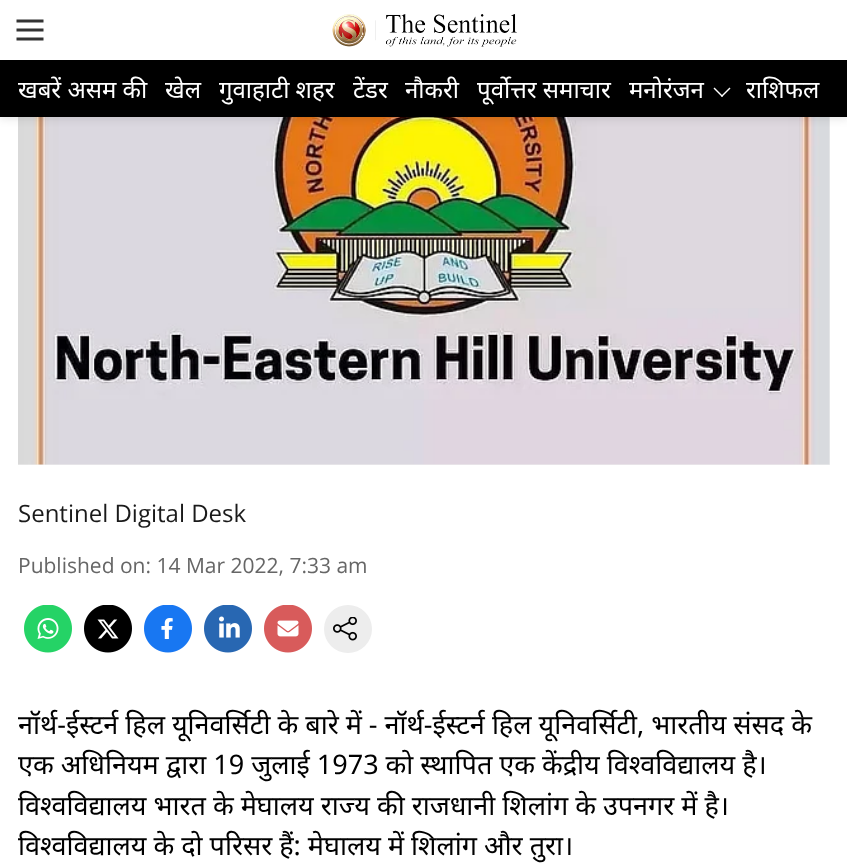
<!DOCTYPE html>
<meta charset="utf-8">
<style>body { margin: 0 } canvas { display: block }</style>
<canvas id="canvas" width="847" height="864"></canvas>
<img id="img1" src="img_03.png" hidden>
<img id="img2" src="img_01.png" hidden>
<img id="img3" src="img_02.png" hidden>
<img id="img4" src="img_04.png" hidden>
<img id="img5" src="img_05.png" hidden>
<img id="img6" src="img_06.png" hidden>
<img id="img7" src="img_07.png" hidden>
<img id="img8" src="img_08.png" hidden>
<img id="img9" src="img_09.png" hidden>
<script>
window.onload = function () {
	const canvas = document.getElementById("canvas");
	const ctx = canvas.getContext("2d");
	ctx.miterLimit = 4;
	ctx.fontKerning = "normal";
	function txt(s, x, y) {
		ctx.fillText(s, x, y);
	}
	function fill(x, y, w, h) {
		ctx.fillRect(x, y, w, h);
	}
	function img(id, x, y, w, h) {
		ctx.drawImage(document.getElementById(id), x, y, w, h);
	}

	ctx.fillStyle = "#FFFFFF";
	fill(0, 0, 847, 864);
	ctx.fillStyle = "#F0F0F0";
	fill(18, 117, 812, 348);
	img("img1", 18, 117, 812, 348);
	ctx.fillStyle = "rgba(0, 0, 0, 0.1)";
	ctx.filter = "blur(4.5px)";
	ctx.beginPath();
	ctx.rect(0, 2, 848, 117);
	ctx.fill();
	ctx.filter = "none";
	ctx.fillStyle = "#FFFFFF";
	fill(0, 0, 847, 60);
	img("img2", 16, 19, 28, 22);
	img("img3", 332, 14, 185, 33);
	ctx.fillStyle = "#000000";
	fill(0, 60, 847, 57);
	ctx.fillStyle = "#FFFFFF";
	ctx.beginPath();
	ctx.moveTo(729.5, 87.5);
	ctx.lineTo(730.5, 88.5);
	ctx.lineTo(722, 97);
	ctx.lineTo(721, 96);
	ctx.closePath();
	ctx.fill();
	ctx.beginPath();
	ctx.moveTo(714.5, 87.5);
	ctx.lineTo(723, 96);
	ctx.lineTo(722, 97);
	ctx.lineTo(713.5, 88.5);
	ctx.closePath();
	ctx.fill();
	img("img4", 24, 605, 48, 48);
	img("img5", 84, 605, 48, 48);
	img("img6", 144, 605, 48, 48);
	img("img7", 204, 605, 48, 48);
	img("img8", 264, 605, 48, 48);
	ctx.fillStyle = "#EDEDED";
	ctx.beginPath();
	ctx.arc(348, 629, 24, 0, Math.PI * 2);
	ctx.fill();
	img("img9", 333, 617, 24, 24);
	ctx.font = "24px Noto Sans";
	ctx.fillStyle = "#FFFFFF";
	txt("खबरें असम की", 18, 98);
	txt("खेल", 165, 98);
	txt("गुवाहाटी शहर", 219, 98);
	txt("टेंडर", 353, 98);
	txt("नौकरी", 405, 98);
	txt("पूर्वोत्तर समाचार", 477, 98);
	txt("मनोरंजन", 629, 98);
	txt("राशिफल", 746, 98);
	ctx.font = "24px Open Sans";
	ctx.fillStyle = "#1A1A1A";
	txt("Sentinel Digital Desk", 18, 522);
	ctx.font = "21px Open Sans";
	ctx.fillStyle = "#666666";
	txt("Published on: 14 Mar 2022, 7:33 am", 18, 573);
	ctx.font = "27px Noto Sans";
	ctx.fillStyle = "#000000";
	txt("नॉर्थ-ईस्टर्न हिल यूनिवर्सिटी के बारे में - नॉर्थ-ईस्टर्न हिल यूनिवर्सिटी, भारतीय संसद के", 18, 734);
	txt("एक अधिनियम द्वारा 19 जुलाई 1973 को स्थापित एक केंद्रीय विश्वविद्यालय है।", 18, 774);
	txt("विश्वविद्यालय भारत के मेघालय राज्य की राजधानी शिलांग के उपनगर में है।", 18, 815);
	txt("विश्वविद्यालय के दो परिसर हैं: मेघालय में शिलांग और तुरा।", 18, 855);
};
</script>
